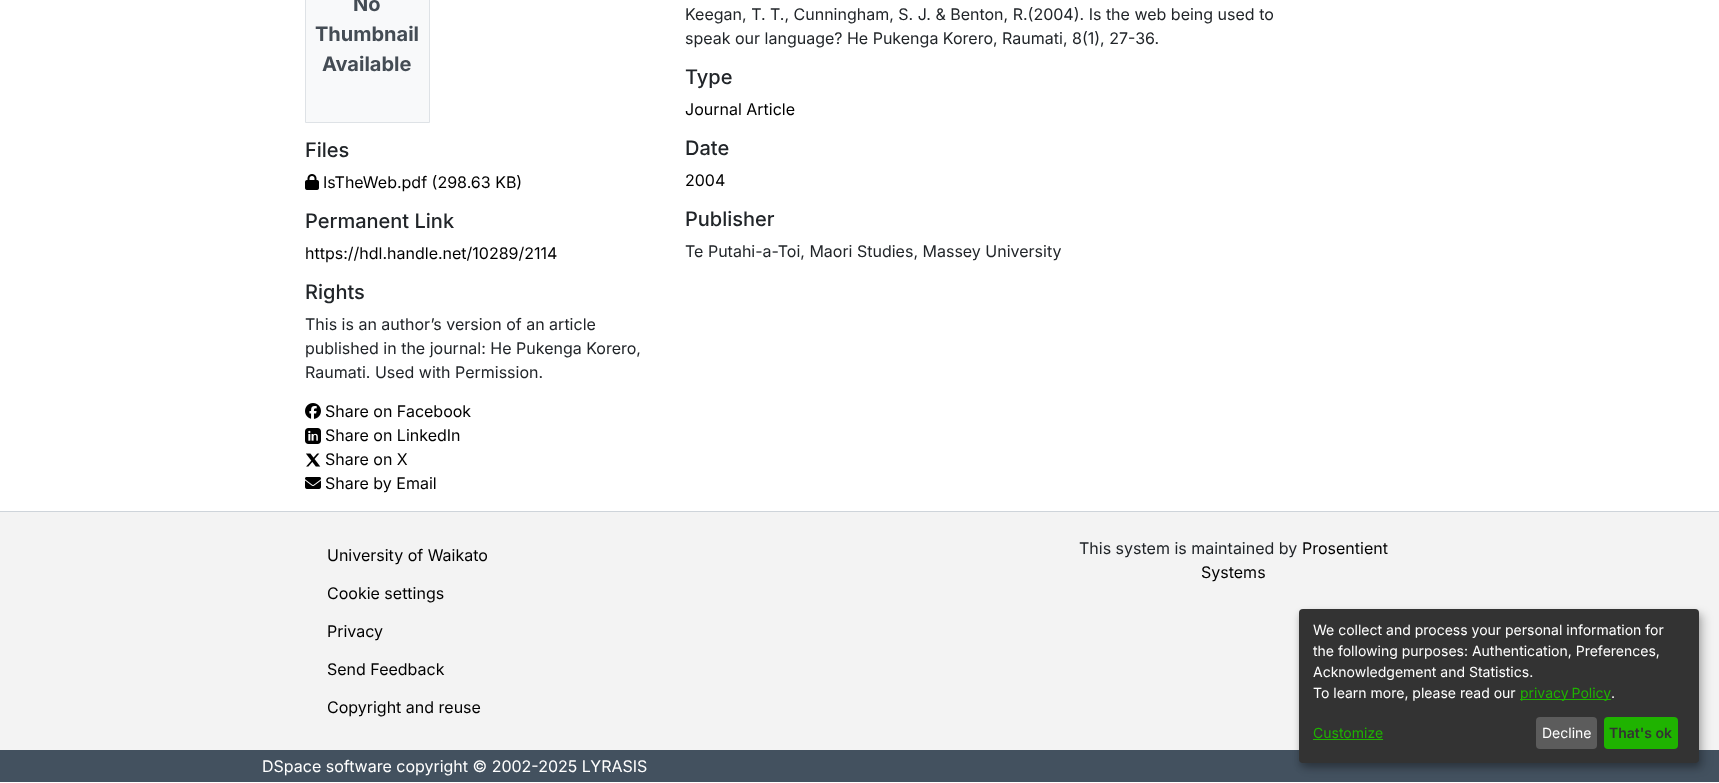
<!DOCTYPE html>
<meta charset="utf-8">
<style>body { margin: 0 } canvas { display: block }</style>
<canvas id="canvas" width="1719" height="783"></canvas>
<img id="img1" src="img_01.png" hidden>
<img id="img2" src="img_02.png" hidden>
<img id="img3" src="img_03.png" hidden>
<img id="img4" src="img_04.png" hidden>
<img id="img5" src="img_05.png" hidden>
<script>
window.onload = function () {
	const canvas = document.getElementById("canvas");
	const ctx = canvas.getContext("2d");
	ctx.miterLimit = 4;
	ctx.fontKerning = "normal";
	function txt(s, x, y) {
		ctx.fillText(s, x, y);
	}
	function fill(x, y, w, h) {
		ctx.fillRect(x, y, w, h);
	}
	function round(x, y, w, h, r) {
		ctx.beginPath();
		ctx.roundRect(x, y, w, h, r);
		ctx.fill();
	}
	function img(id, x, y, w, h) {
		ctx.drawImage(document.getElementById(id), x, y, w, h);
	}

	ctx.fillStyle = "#FFFFFF";
	fill(0, 0, 1719, 783);
	ctx.fillStyle = "#F8F9FA";
	ctx.beginPath();
	ctx.rect(305.5, -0.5, 124, 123);
	ctx.fill();
	ctx.strokeStyle = "#DEE2E6";
	ctx.stroke();
	img("img1", 305, 174, 14, 16);
	img("img2", 305, 403, 16, 16);
	img("img3", 305, 428, 16, 16);
	img("img4", 306, 453, 15, 14);
	img("img5", 305, 477, 16, 12);
	ctx.fillStyle = "#43515F";
	fill(0, 750, 1719, 32);
	ctx.fillStyle = "#CED4DA";
	fill(0, 511, 1719, 1);
	ctx.fillStyle = "#F3F3F3";
	fill(0, 512, 1719, 238);
	ctx.fillStyle = "rgba(0, 0, 0, 0.19)";
	ctx.filter = "blur(5px)";
	ctx.beginPath();
	ctx.roundRect(1304, 614, 400, 154, 4);
	ctx.fill();
	ctx.filter = "none";
	ctx.fillStyle = "rgba(0, 0, 0, 0.2)";
	ctx.filter = "blur(3px)";
	ctx.beginPath();
	ctx.roundRect(1299, 613, 400, 154, 4);
	ctx.fill();
	ctx.filter = "none";
	ctx.fillStyle = "#333333";
	round(1299, 609, 400, 154, 4);
	ctx.fillStyle = "#1FB300";
	fill(1520, 699, 91, 1);
	fill(1313, 739, 70, 1);
	ctx.fillStyle = "#5C5C5C";
	round(1536, 717, 61, 32, 4);
	ctx.fillStyle = "#1FB300";
	round(1604, 717, 74, 32, 4);
	ctx.font = "bold 20px Inter";
	ctx.fillStyle = "#444C54";
	txt("No", 353, 11);
	txt("Thumbnail", 315, 41);
	txt("Available", 322, 71);
	ctx.font = "500 20px Inter";
	ctx.fillStyle = "#212529";
	txt("Files", 305, 157);
	ctx.font = "16px Inter";
	ctx.fillStyle = "#000000";
	txt("IsTheWeb.pdf (298.63 KB)", 323, 188);
	ctx.font = "500 20px Inter";
	ctx.fillStyle = "#212529";
	txt("Permanent Link", 305, 228);
	ctx.font = "16px Inter";
	ctx.fillStyle = "#000000";
	txt("https://hdl.handle.net/10289/2114", 305, 259);
	ctx.font = "500 20px Inter";
	ctx.fillStyle = "#212529";
	txt("Rights", 305, 299);
	ctx.font = "16px Inter";
	txt("This is an author’s version of an article", 305, 330);
	txt("published in the journal: He Pukenga Korero,", 305, 354);
	txt("Raumati. Used with Permission.", 305, 378);
	ctx.fillStyle = "#000000";
	txt("Share on Facebook", 325, 417);
	txt("Share on LinkedIn", 325, 441);
	txt("Share on X", 325, 465);
	txt("Share by Email", 325, 489);
	ctx.fillStyle = "#212529";
	txt("Keegan, T. T., Cunningham, S. J. & Benton, R.(2004). Is the web being used to", 685, 20);
	txt("speak our language? He Pukenga Korero, Raumati, 8(1), 27-36.", 685, 44);
	ctx.font = "500 20px Inter";
	txt("Type", 685, 84);
	ctx.font = "16px Inter";
	ctx.fillStyle = "#000000";
	txt("Journal Article", 685, 115);
	ctx.font = "500 20px Inter";
	ctx.fillStyle = "#212529";
	txt("Date", 685, 155);
	ctx.font = "16px Inter";
	ctx.fillStyle = "#000000";
	txt("2004", 685, 186);
	ctx.font = "500 20px Inter";
	ctx.fillStyle = "#212529";
	txt("Publisher", 685, 226);
	ctx.font = "16px Inter";
	txt("Te Putahi-a-Toi, Maori Studies, Massey University", 685, 257);
	ctx.fillStyle = "#000000";
	txt("University of Waikato", 327, 561);
	txt("Cookie settings", 327, 599);
	txt("Privacy", 327, 637);
	txt("Send Feedback", 327, 675);
	txt("Copyright and reuse", 327, 713);
	ctx.fillStyle = "#212529";
	txt("This system is maintained by", 1079, 554);
	ctx.fillStyle = "#000000";
	txt("Prosentient", 1302, 554);
	txt("Systems", 1201, 578);
	ctx.fillStyle = "#FFFFFF";
	txt("DSpace software copyright © 2002-2025 LYRASIS", 262, 772);
	ctx.font = "14px Inter";
	txt("We collect and process your personal information for", 1313, 635);
	txt("the following purposes: Authentication, Preferences,", 1313, 656);
	txt("Acknowledgement and Statistics.", 1313, 677);
	txt("To learn more, please read our", 1313, 698);
	ctx.wordSpacing = "-1px";
	ctx.fillStyle = "#1FB300";
	txt("privacy Policy", 1520, 698);
	ctx.wordSpacing = "0px";
	ctx.fillStyle = "#FFFFFF";
	txt(".", 1611, 698);
	ctx.fillStyle = "#1FB300";
	txt("Customize", 1313, 738);
	ctx.fillStyle = "#FFFFFF";
	txt("Decline", 1542, 738);
	ctx.font = "600 14px Inter";
	ctx.fillStyle = "#333333";
	txt("That's ok", 1609, 738);
};
</script>
